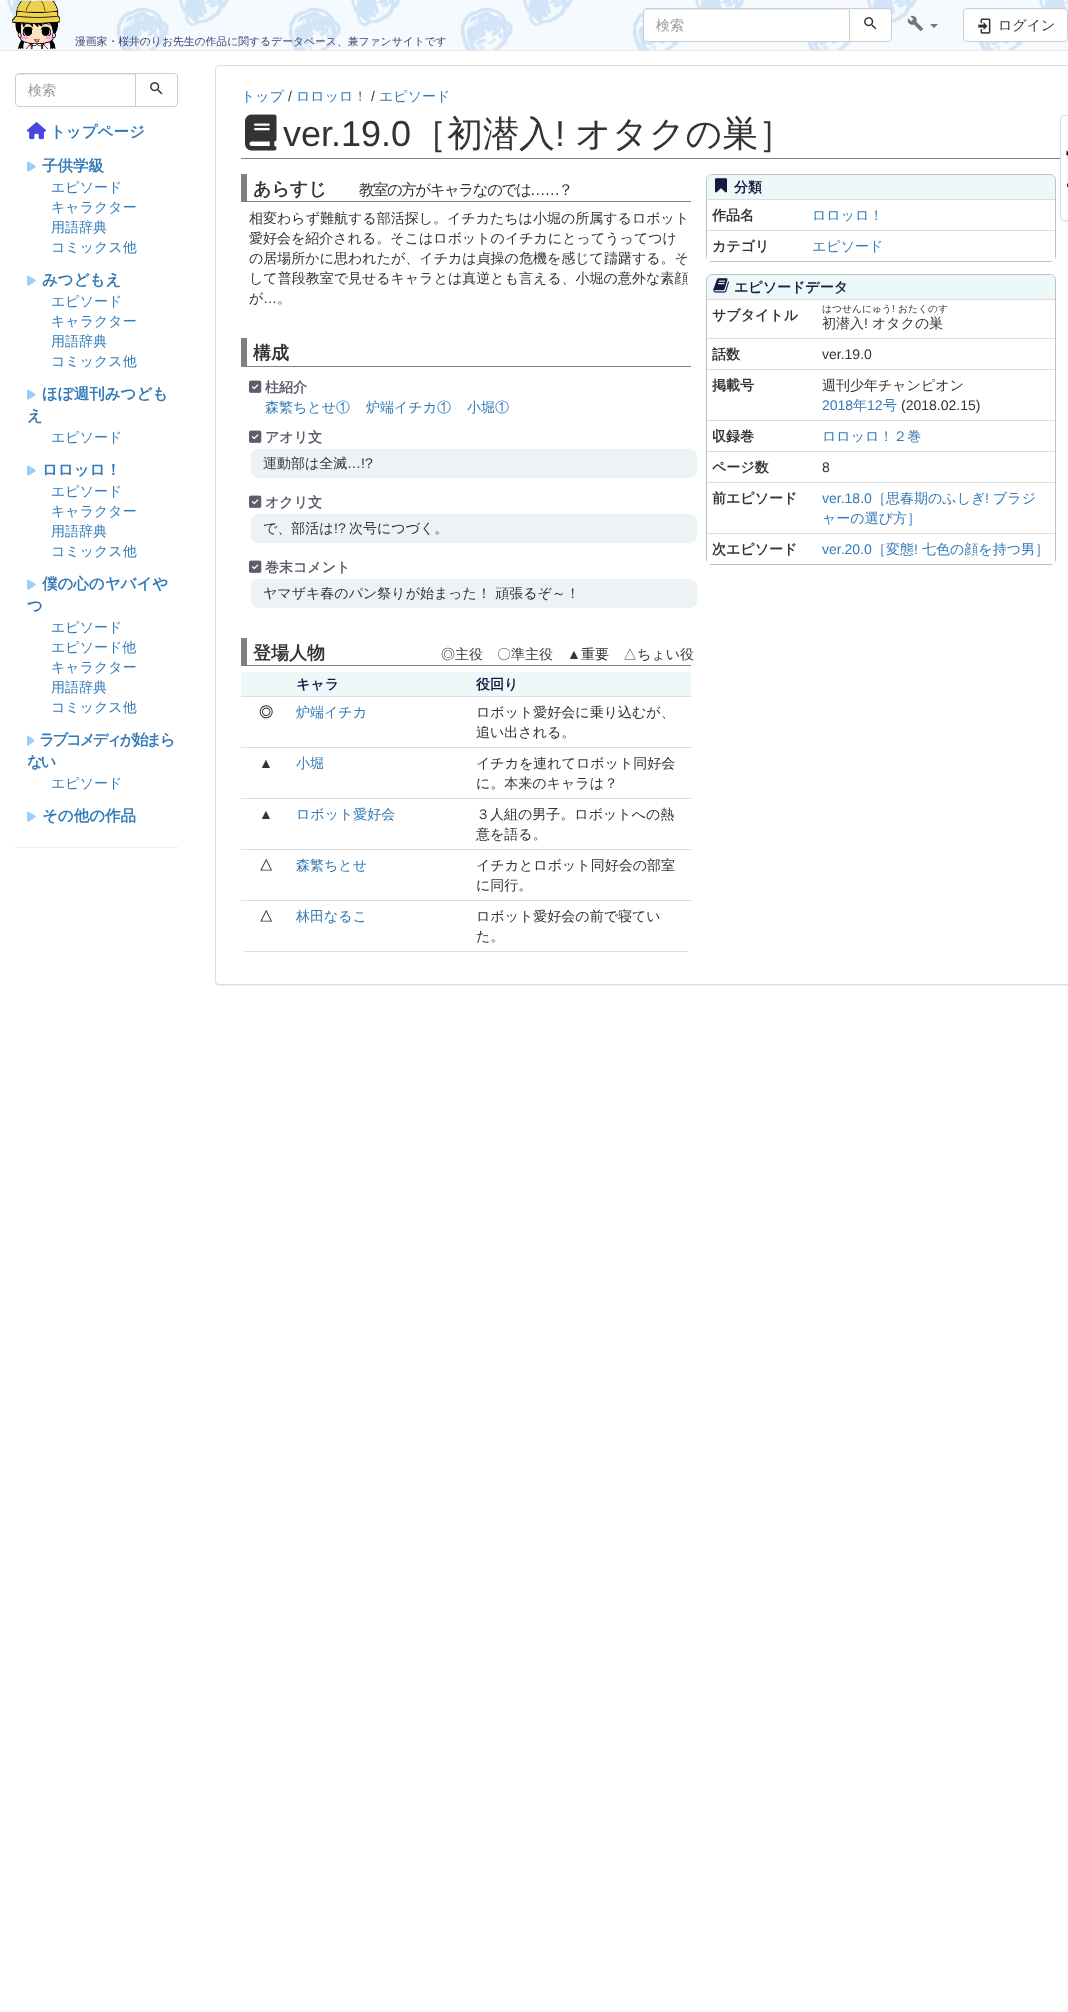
<!DOCTYPE html>
<meta charset="utf-8">
<style>body { margin: 0 } canvas { display: block }</style>
<canvas id="canvas" width="1068" height="2012"></canvas>
<img id="img1" src="img_01.png" hidden>
<img id="img2" src="img_02.png" hidden>
<img id="img3" src="img_03.png" hidden>
<img id="img4" src="img_04.png" hidden>
<img id="img5" src="img_05.png" hidden>
<img id="img6" src="img_06.png" hidden>
<img id="img7" src="img_07.png" hidden>
<img id="img8" src="img_08.png" hidden>
<img id="img9" src="img_09.png" hidden>
<img id="img10" src="img_10.png" hidden>
<img id="img11" src="img_11.png" hidden>
<img id="img12" src="img_12.png" hidden>
<img id="img13" src="img_13.png" hidden>
<img id="img14" src="img_14.png" hidden>
<script>
window.onload = function () {
	const canvas = document.getElementById("canvas");
	const ctx = canvas.getContext("2d");
	ctx.miterLimit = 4;
	ctx.fontKerning = "normal";
	function txt(s, x, y) {
		ctx.fillText(s, x, y);
	}
	function fill(x, y, w, h) {
		ctx.fillRect(x, y, w, h);
	}
	function img(id, x, y, w, h) {
		ctx.drawImage(document.getElementById(id), x, y, w, h);
	}

	ctx.fillStyle = "#FFFFFF";
	fill(0, 0, 1068, 2012);
	ctx.fillStyle = "#E7E7E7";
	fill(0, 50, 1068, 1);
	img("img1", 0, 0, 1068, 50);
	ctx.fillStyle = "#FFFFFF";
	ctx.beginPath();
	ctx.roundRect(643, 8, 207, 34, [4, 0, 0, 4]);
	ctx.fill();
	ctx.fillStyle = "#ECECEC";
	ctx.beginPath();
	ctx.moveTo(647, 10);
	ctx.lineTo(849, 10);
	ctx.lineTo(849, 9);
	ctx.lineTo(646, 9);
	ctx.bezierCurveTo(644, 10, 644, 11, 644, 13);
	ctx.bezierCurveTo(644, 11, 645, 10, 647, 10);
	ctx.closePath();
	ctx.fill();
	ctx.beginPath();
	ctx.roundRect(643.5, 8.5, 206, 33, [3.5, 0, 0, 3.5]);
	ctx.strokeStyle = "#CCCCCC";
	ctx.stroke();
	ctx.fillStyle = "#FFFFFF";
	ctx.beginPath();
	ctx.roundRect(849.5, 8.5, 42, 33, [0, 3.5, 3.5, 0]);
	ctx.fill();
	ctx.stroke();
	img("img2", 864, 17, 13, 13);
	img("img3", 907, 15, 16, 16);
	ctx.fillStyle = "#777777";
	ctx.beginPath();
	ctx.moveTo(930, 24);
	ctx.lineTo(938, 24);
	ctx.lineTo(934, 28);
	ctx.closePath();
	ctx.fill();
	ctx.fillStyle = "#FFFFFF";
	ctx.beginPath();
	ctx.roundRect(963.5, 8.5, 104, 33, 3.5);
	ctx.fill();
	ctx.stroke();
	img("img4", 978, 18, 13, 16);
	img("img5", 12, 1, 48, 48);
	ctx.fillStyle = "#ECECEC";
	ctx.beginPath();
	ctx.moveTo(19, 75);
	ctx.lineTo(135, 75);
	ctx.lineTo(135, 74);
	ctx.lineTo(19, 74);
	ctx.bezierCurveTo(17, 74, 16, 75, 16, 77);
	ctx.lineTo(16, 78);
	ctx.bezierCurveTo(16, 76, 17, 75, 19, 75);
	ctx.closePath();
	ctx.fill();
	ctx.beginPath();
	ctx.roundRect(15.5, 73.5, 120, 33, [3.5, 0, 0, 3.5]);
	ctx.stroke();
	ctx.fillStyle = "#FFFFFF";
	ctx.beginPath();
	ctx.roundRect(135.5, 73.5, 42, 33, [0, 3.5, 3.5, 0]);
	ctx.fill();
	ctx.stroke();
	img("img2", 150, 82, 13, 13);
	img("img6", 27, 122, 19, 18);
	img("img7", 27, 161, 9, 11);
	img("img7", 27, 275, 9, 11);
	img("img7", 27, 389, 9, 11);
	img("img7", 27, 465, 9, 11);
	img("img7", 27, 579, 9, 11);
	img("img8", 27, 735, 8, 11);
	img("img7", 27, 811, 9, 11);
	ctx.fillStyle = "#EEEEEE";
	fill(15, 847, 163, 1);
	ctx.fillStyle = "rgba(0, 0, 0, 0.05)";
	ctx.filter = "blur(0.5px)";
	ctx.beginPath();
	ctx.roundRect(215, 66, 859, 920, 4);
	ctx.fill();
	ctx.filter = "none";
	ctx.fillStyle = "#FFFFFF";
	ctx.beginPath();
	ctx.roundRect(215.5, 65.5, 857, 919, 3.5);
	ctx.fill();
	ctx.strokeStyle = "#DDDDDD";
	ctx.stroke();
	ctx.fillStyle = "#808080";
	fill(241, 158, 819, 1);
	img("img9", 245, 114, 32, 37);
	fill(241, 201, 450, 1);
	fill(241, 174, 6, 28);
	fill(241, 366, 450, 1);
	fill(241, 338, 6, 29);
	img("img10", 249, 380, 13, 13);
	img("img10", 249, 430, 13, 13);
	ctx.fillStyle = "#EDF2F4";
	fill(256, 449, 436, 2);
	fill(692, 450, 2, 1);
	fill(254, 450, 2, 1);
	fill(253, 451, 442, 3);
	fill(695, 452, 1, 2);
	fill(252, 452, 1, 2);
	fill(251, 454, 446, 19);
	fill(252, 473, 444, 2);
	fill(253, 475, 442, 1);
	fill(254, 476, 440, 1);
	fill(256, 477, 436, 1);
	img("img10", 249, 495, 13, 13);
	fill(256, 514, 436, 2);
	fill(692, 515, 2, 1);
	fill(254, 515, 2, 1);
	fill(253, 516, 442, 3);
	fill(695, 517, 1, 2);
	fill(252, 517, 1, 2);
	fill(251, 519, 446, 19);
	fill(252, 538, 444, 2);
	fill(253, 540, 442, 1);
	fill(254, 541, 440, 1);
	fill(256, 542, 436, 1);
	img("img10", 249, 560, 13, 13);
	fill(256, 579, 436, 2);
	fill(692, 580, 2, 1);
	fill(254, 580, 2, 1);
	fill(253, 581, 442, 3);
	fill(695, 582, 1, 2);
	fill(252, 582, 1, 2);
	fill(251, 584, 446, 19);
	fill(252, 603, 444, 2);
	fill(253, 605, 442, 1);
	fill(254, 606, 440, 1);
	fill(256, 607, 436, 1);
	ctx.fillStyle = "#808080";
	fill(241, 665, 450, 1);
	fill(241, 638, 6, 28);
	ctx.fillStyle = "#EDF8F9";
	fill(241, 672, 450, 24);
	ctx.fillStyle = "#DDDDDD";
	fill(241, 696, 450, 1);
	fill(241, 747, 450, 1);
	fill(241, 798, 450, 1);
	fill(241, 849, 450, 1);
	fill(241, 900, 450, 1);
	fill(244, 951, 444, 1);
	ctx.beginPath();
	ctx.roundRect(706.5, 174.5, 349, 87, 5.5);
	ctx.strokeStyle = "#C0C0C0";
	ctx.stroke();
	ctx.fillStyle = "#EDF8F9";
	ctx.beginPath();
	ctx.roundRect(707, 175, 348, 24, [6, 6, 0, 0]);
	ctx.fill();
	img("img11", 715, 178, 12, 15);
	ctx.fillStyle = "#DDDDDD";
	fill(707, 199, 348, 1);
	ctx.fillStyle = "#FFFFFF";
	fill(707, 256, 348, 5);
	ctx.fillStyle = "#DDDDDD";
	fill(707, 230, 348, 1);
	ctx.beginPath();
	ctx.roundRect(706.5, 274.5, 349, 290, 5.5);
	ctx.stroke();
	ctx.fillStyle = "#EDF8F9";
	ctx.beginPath();
	ctx.roundRect(707, 275, 348, 24, [6, 6, 0, 0]);
	ctx.fill();
	img("img12", 713, 278, 16, 15);
	ctx.fillStyle = "#DDDDDD";
	fill(707, 299, 348, 1);
	fill(707, 338, 348, 1);
	fill(707, 369, 348, 1);
	fill(707, 420, 348, 1);
	fill(707, 451, 348, 1);
	fill(707, 482, 348, 1);
	ctx.fillStyle = "#FFFFFF";
	fill(707, 559, 348, 5);
	ctx.fillStyle = "#DDDDDD";
	fill(707, 533, 348, 1);
	ctx.fillStyle = "rgba(0, 0, 0, 0.05)";
	ctx.filter = "blur(0.5px)";
	ctx.beginPath();
	ctx.roundRect(1060, 116, 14, 106, 4);
	ctx.fill();
	ctx.filter = "none";
	ctx.fillStyle = "#FFFFFF";
	ctx.beginPath();
	ctx.roundRect(1060.5, 115.5, 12, 105, 3.5);
	ctx.fill();
	ctx.strokeStyle = "#DDDDDD";
	ctx.stroke();
	img("img13", 1066, 150, 2, 9);
	img("img14", 1067, 183, 1, 5);
	ctx.font = "500 14px WenQuanYi Zen Hei";
	ctx.fillStyle = "#999999";
	txt("検索", 656, 30);
	ctx.fillStyle = "#333333";
	txt("ログイン", 998, 30);
	ctx.font = "500 10.8px WenQuanYi Zen Hei";
	ctx.fillStyle = "#414172";
	txt("漫画家・桜井のりお先生の作品に関するデータベース、兼ファンサイトです", 75, 45);
	ctx.font = "500 14px WenQuanYi Zen Hei";
	ctx.fillStyle = "#999999";
	txt("検索", 28, 95);
	ctx.font = "bold 15.5px WenQuanYi Zen Hei";
	ctx.fillStyle = "#337AB7";
	txt("トップページ", 50, 137);
	txt("子供学級", 42, 171);
	ctx.font = "500 14px WenQuanYi Zen Hei";
	txt("エピソード", 51, 192);
	txt("キャラクター", 51, 212);
	txt("用語辞典", 51, 232);
	txt("コミックス他", 51, 252);
	ctx.font = "bold 15.5px WenQuanYi Zen Hei";
	txt("みつどもえ", 42, 285);
	ctx.font = "500 14px WenQuanYi Zen Hei";
	txt("エピソード", 51, 306);
	txt("キャラクター", 51, 326);
	txt("用語辞典", 51, 346);
	txt("コミックス他", 51, 366);
	ctx.font = "bold 15.5px WenQuanYi Zen Hei";
	txt("ほぼ週刊みつども", 42, 399);
	txt("え", 27, 421);
	ctx.font = "500 14px WenQuanYi Zen Hei";
	txt("エピソード", 51, 442);
	ctx.font = "bold 15.5px WenQuanYi Zen Hei";
	txt("ロロッロ！", 42, 475);
	ctx.font = "500 14px WenQuanYi Zen Hei";
	txt("エピソード", 51, 496);
	txt("キャラクター", 51, 516);
	txt("用語辞典", 51, 536);
	txt("コミックス他", 51, 556);
	ctx.font = "bold 15.5px WenQuanYi Zen Hei";
	txt("僕の心のヤバイや", 42, 589);
	txt("つ", 27, 611);
	ctx.font = "500 14px WenQuanYi Zen Hei";
	txt("エピソード", 51, 632);
	txt("エピソード他", 51, 652);
	txt("キャラクター", 51, 672);
	txt("用語辞典", 51, 692);
	txt("コミックス他", 51, 712);
	ctx.letterSpacing = "-2.4px";
	ctx.font = "bold 15.5px WenQuanYi Zen Hei";
	txt("ラブコメディが始まら", 39, 745);
	txt("ない", 27, 767);
	ctx.letterSpacing = "0px";
	ctx.font = "500 14px WenQuanYi Zen Hei";
	txt("エピソード", 51, 788);
	ctx.font = "bold 15.5px WenQuanYi Zen Hei";
	txt("その他の作品", 42, 821);
	ctx.font = "500 14px WenQuanYi Zen Hei";
	txt("トップ", 241, 101);
	ctx.font = "14px Liberation Sans";
	ctx.fillStyle = "#333333";
	txt("/", 288, 101);
	ctx.font = "500 14px WenQuanYi Zen Hei";
	ctx.fillStyle = "#337AB7";
	txt("ロロッロ！", 296, 101);
	ctx.font = "14px Liberation Sans";
	ctx.fillStyle = "#333333";
	txt("/", 371, 101);
	ctx.font = "500 14px WenQuanYi Zen Hei";
	ctx.fillStyle = "#337AB7";
	txt("エピソード", 379, 101);
	ctx.font = "36px Liberation Sans";
	ctx.fillStyle = "#333333";
	txt("ver.19.0", 283, 146);
	ctx.font = "500 36px WenQuanYi Zen Hei";
	txt("［初潜入", 411, 146);
	ctx.font = "36px Liberation Sans";
	txt("!", 555, 146);
	ctx.font = "500 36px WenQuanYi Zen Hei";
	txt("オタクの巣］", 575, 146);
	ctx.font = "bold 18px WenQuanYi Zen Hei";
	txt("あらすじ", 253, 195);
	ctx.letterSpacing = "-1.5px";
	ctx.font = "500 15.5px WenQuanYi Zen Hei";
	txt("教室の方がキャラなのでは", 359, 195);
	ctx.letterSpacing = "-1px";
	ctx.font = "15.5px Liberation Sans";
	txt("……", 530, 195);
	ctx.font = "500 15.5px WenQuanYi Zen Hei";
	txt("？", 558, 195);
	ctx.letterSpacing = "0px";
	ctx.font = "500 14px WenQuanYi Zen Hei";
	txt("相変わらず難航する部活探し。イチカたちは小堀の所属するロボット", 249, 223);
	txt("愛好会を紹介される。そこはロボットのイチカにとってうってつけ", 249, 243);
	txt("の居場所かに思われたが、イチカは貞操の危機を感じて躊躇する。そ", 249, 263);
	txt("して普段教室で見せるキャラとは真逆とも言える、小堀の意外な素顔", 249, 283);
	txt("が", 249, 303);
	ctx.font = "14px Liberation Sans";
	txt("…", 263, 303);
	ctx.font = "500 14px WenQuanYi Zen Hei";
	txt("。", 277, 303);
	ctx.font = "bold 18px WenQuanYi Zen Hei";
	txt("構成", 253, 359);
	ctx.font = "bold 14px WenQuanYi Zen Hei";
	ctx.fillStyle = "#5D5D6D";
	txt("柱紹介", 265, 392);
	ctx.font = "500 14px WenQuanYi Zen Hei";
	ctx.fillStyle = "#337AB7";
	txt("森繁ちとせ①", 265, 412);
	txt("炉端イチカ①", 366, 412);
	txt("小堀①", 467, 412);
	ctx.font = "bold 14px WenQuanYi Zen Hei";
	ctx.fillStyle = "#5D5D6D";
	txt("アオリ文", 265, 442);
	ctx.font = "500 14px WenQuanYi Zen Hei";
	ctx.fillStyle = "#333333";
	txt("運動部は全滅", 263, 468);
	ctx.font = "14px Liberation Sans";
	txt("…!?", 347, 468);
	ctx.font = "bold 14px WenQuanYi Zen Hei";
	ctx.fillStyle = "#5D5D6D";
	txt("オクリ文", 265, 507);
	ctx.font = "500 14px WenQuanYi Zen Hei";
	ctx.fillStyle = "#333333";
	txt("で、部活は", 263, 533);
	ctx.font = "14px Liberation Sans";
	txt("!?", 334, 533);
	ctx.font = "500 14px WenQuanYi Zen Hei";
	txt("次号につづく。", 349, 533);
	ctx.font = "bold 14px WenQuanYi Zen Hei";
	ctx.fillStyle = "#5D5D6D";
	txt("巻末コメント", 265, 572);
	ctx.font = "500 14px WenQuanYi Zen Hei";
	ctx.fillStyle = "#333333";
	txt("ヤマザキ春のパン祭りが始まった！ 頑張るぞ～！", 263, 598);
	ctx.font = "bold 18px WenQuanYi Zen Hei";
	txt("登場人物", 253, 659);
	ctx.font = "500 14px WenQuanYi Zen Hei";
	txt("◎主役　〇準主役", 441, 659);
	ctx.font = "14px Liberation Sans";
	txt("▲", 567, 659);
	ctx.font = "500 14px WenQuanYi Zen Hei";
	txt("重要　△ちょい役", 581, 659);
	ctx.font = "bold 14px WenQuanYi Zen Hei";
	ctx.fillStyle = "#17183F";
	txt("キャラ", 296, 689);
	txt("役回り", 476, 689);
	ctx.fillStyle = "#333333";
	txt("◎", 259, 717);
	ctx.font = "500 14px WenQuanYi Zen Hei";
	ctx.fillStyle = "#337AB7";
	txt("炉端イチカ", 296, 717);
	ctx.fillStyle = "#333333";
	txt("ロボット愛好会に乗り込むが、", 476, 717);
	txt("追い出される。", 476, 737);
	ctx.font = "bold 14px Liberation Sans";
	txt("▲", 259, 768);
	ctx.font = "500 14px WenQuanYi Zen Hei";
	ctx.fillStyle = "#337AB7";
	txt("小堀", 296, 768);
	ctx.fillStyle = "#333333";
	txt("イチカを連れてロボット同好会", 476, 768);
	txt("に。本来のキャラは？", 476, 788);
	ctx.font = "bold 14px Liberation Sans";
	txt("▲", 259, 819);
	ctx.font = "500 14px WenQuanYi Zen Hei";
	ctx.fillStyle = "#337AB7";
	txt("ロボット愛好会", 296, 819);
	ctx.fillStyle = "#333333";
	txt("３人組の男子。ロボットへの熱", 476, 819);
	txt("意を語る。", 476, 839);
	ctx.font = "bold 14px WenQuanYi Zen Hei";
	txt("△", 259, 870);
	ctx.font = "500 14px WenQuanYi Zen Hei";
	ctx.fillStyle = "#337AB7";
	txt("森繁ちとせ", 296, 870);
	ctx.fillStyle = "#333333";
	txt("イチカとロボット同好会の部室", 476, 870);
	txt("に同行。", 476, 890);
	ctx.font = "bold 14px WenQuanYi Zen Hei";
	txt("△", 259, 921);
	ctx.font = "500 14px WenQuanYi Zen Hei";
	ctx.fillStyle = "#337AB7";
	txt("林田なるこ", 296, 921);
	ctx.fillStyle = "#333333";
	txt("ロボット愛好会の前で寝てい", 476, 921);
	txt("た。", 476, 941);
	ctx.font = "bold 14px WenQuanYi Zen Hei";
	ctx.fillStyle = "#17183F";
	txt("分類", 734, 192);
	ctx.fillStyle = "#333333";
	txt("作品名", 712, 220);
	ctx.font = "500 14px WenQuanYi Zen Hei";
	ctx.fillStyle = "#337AB7";
	txt("ロロッロ！", 812, 220);
	ctx.font = "bold 14px WenQuanYi Zen Hei";
	ctx.fillStyle = "#333333";
	txt("カテゴリ", 712, 251);
	ctx.font = "500 14px WenQuanYi Zen Hei";
	ctx.fillStyle = "#337AB7";
	txt("エピソード", 812, 251);
	ctx.font = "bold 14px WenQuanYi Zen Hei";
	ctx.fillStyle = "#17183F";
	txt("エピソードデータ", 734, 292);
	ctx.fillStyle = "#333333";
	txt("サブタイトル", 712, 320);
	ctx.font = "500 9.75px WenQuanYi Zen Hei";
	txt("はつせんにゅう", 822, 312);
	ctx.font = "9.75px Liberation Sans";
	txt("!", 892, 312);
	ctx.font = "500 9.75px WenQuanYi Zen Hei";
	txt("おたくのす", 898, 312);
	ctx.font = "500 14px WenQuanYi Zen Hei";
	txt("初潜入", 822, 328);
	ctx.font = "14px Liberation Sans";
	txt("!", 864, 328);
	ctx.font = "500 14px WenQuanYi Zen Hei";
	txt("オタクの巣", 872, 328);
	ctx.font = "bold 14px WenQuanYi Zen Hei";
	txt("話数", 712, 359);
	ctx.font = "14px Liberation Sans";
	txt("ver.19.0", 822, 359);
	ctx.font = "bold 14px WenQuanYi Zen Hei";
	txt("掲載号", 712, 390);
	ctx.font = "500 14px WenQuanYi Zen Hei";
	txt("週刊少年チャンピオン", 822, 390);
	ctx.font = "14px Liberation Sans";
	ctx.fillStyle = "#337AB7";
	txt("2018", 822, 410);
	ctx.font = "500 14px WenQuanYi Zen Hei";
	txt("年", 853, 410);
	ctx.font = "14px Liberation Sans";
	txt("12", 867, 410);
	ctx.font = "500 14px WenQuanYi Zen Hei";
	txt("号", 883, 410);
	ctx.font = "14px Liberation Sans";
	ctx.fillStyle = "#333333";
	txt("(2018.02.15)", 901, 410);
	ctx.font = "bold 14px WenQuanYi Zen Hei";
	txt("収録巻", 712, 441);
	ctx.font = "500 14px WenQuanYi Zen Hei";
	ctx.fillStyle = "#337AB7";
	txt("ロロッロ！２巻", 822, 441);
	ctx.font = "bold 14px WenQuanYi Zen Hei";
	ctx.fillStyle = "#333333";
	txt("ページ数", 712, 472);
	ctx.font = "14px Liberation Sans";
	txt("8", 822, 472);
	ctx.font = "bold 14px WenQuanYi Zen Hei";
	txt("前エピソード", 712, 503);
	ctx.font = "14px Liberation Sans";
	ctx.fillStyle = "#337AB7";
	txt("ver.18.0", 822, 503);
	ctx.font = "500 14px WenQuanYi Zen Hei";
	txt("［思春期のふしぎ", 872, 503);
	ctx.font = "14px Liberation Sans";
	txt("!", 985, 503);
	ctx.font = "500 14px WenQuanYi Zen Hei";
	txt("ブラジ", 993, 503);
	txt("ャーの選び方］", 822, 523);
	ctx.font = "bold 14px WenQuanYi Zen Hei";
	ctx.fillStyle = "#333333";
	txt("次エピソード", 712, 554);
	ctx.font = "14px Liberation Sans";
	ctx.fillStyle = "#337AB7";
	txt("ver.20.0", 822, 554);
	ctx.font = "500 14px WenQuanYi Zen Hei";
	txt("［変態", 872, 554);
	ctx.font = "14px Liberation Sans";
	txt("!", 914, 554);
	ctx.font = "500 14px WenQuanYi Zen Hei";
	txt("七色の顔を持つ男］", 922, 554);
};
</script>
